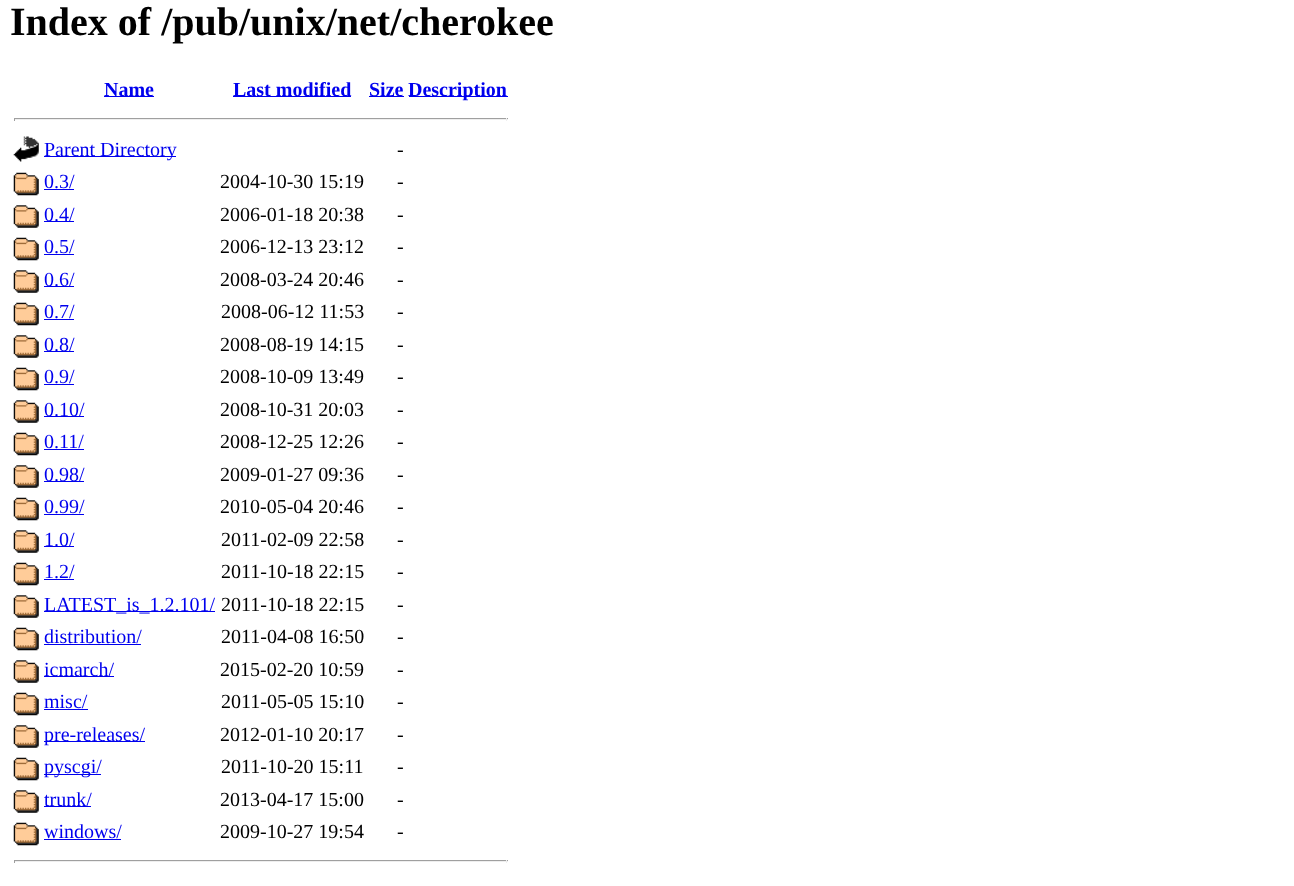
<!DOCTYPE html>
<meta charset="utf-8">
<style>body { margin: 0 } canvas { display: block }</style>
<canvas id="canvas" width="1294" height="886"></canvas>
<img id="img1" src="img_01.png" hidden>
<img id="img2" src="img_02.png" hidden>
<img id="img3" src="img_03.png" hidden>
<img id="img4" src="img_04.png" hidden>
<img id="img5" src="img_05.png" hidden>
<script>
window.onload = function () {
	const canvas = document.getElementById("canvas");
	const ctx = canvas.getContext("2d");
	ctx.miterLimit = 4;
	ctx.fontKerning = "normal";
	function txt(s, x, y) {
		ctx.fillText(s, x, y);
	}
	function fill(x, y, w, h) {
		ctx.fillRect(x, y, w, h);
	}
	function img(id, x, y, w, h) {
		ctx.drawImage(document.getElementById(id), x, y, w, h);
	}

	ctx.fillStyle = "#FFFFFF";
	fill(0, 0, 1294, 886);
	ctx.fillStyle = "#0000EE";
	fill(104, 96, 50, 1);
	fill(233, 96, 118, 1);
	fill(369, 96, 35, 1);
	fill(409, 96, 99, 1);
	ctx.fillStyle = "#9F9F9F";
	fill(14, 118, 494, 1);
	ctx.fillStyle = "#EEEEEE";
	fill(506, 118, 1, 3);
	fill(14, 119, 494, 1);
	ctx.fillStyle = "#9F9F9F";
	fill(14, 118, 1, 3);
	img("img1", 13, 136, 26, 26);
	ctx.fillStyle = "#0000EE";
	fill(44, 156, 132, 1);
	img("img2", 13, 172, 26, 24);
	fill(44, 189, 30, 1);
	img("img3", 13, 205, 26, 23);
	fill(44, 221, 30, 1);
	img("img2", 13, 237, 26, 24);
	fill(44, 254, 30, 1);
	img("img4", 13, 270, 26, 23);
	fill(44, 286, 30, 1);
	img("img2", 13, 302, 26, 24);
	fill(44, 319, 30, 1);
	img("img3", 13, 335, 26, 23);
	fill(44, 351, 30, 1);
	img("img2", 13, 367, 26, 24);
	fill(44, 384, 30, 1);
	img("img3", 13, 400, 26, 23);
	fill(44, 416, 40, 1);
	img("img2", 13, 432, 26, 24);
	fill(44, 449, 40, 1);
	img("img3", 13, 465, 26, 23);
	fill(44, 481, 40, 1);
	img("img2", 13, 497, 26, 24);
	fill(44, 514, 40, 1);
	img("img3", 13, 530, 26, 23);
	fill(44, 546, 30, 1);
	img("img5", 13, 562, 26, 24);
	fill(44, 579, 30, 1);
	img("img3", 13, 595, 26, 23);
	fill(44, 611, 171, 1);
	img("img2", 13, 627, 26, 24);
	fill(44, 644, 97, 1);
	img("img3", 13, 660, 26, 23);
	fill(44, 676, 70, 1);
	img("img2", 13, 692, 26, 24);
	fill(44, 709, 44, 1);
	img("img3", 13, 725, 26, 23);
	fill(44, 741, 101, 1);
	img("img2", 13, 757, 26, 24);
	fill(44, 774, 57, 1);
	img("img3", 13, 790, 26, 23);
	fill(44, 806, 47, 1);
	img("img2", 13, 822, 26, 24);
	fill(44, 839, 77, 1);
	ctx.fillStyle = "#9F9F9F";
	fill(14, 860, 494, 1);
	ctx.fillStyle = "#EEEEEE";
	fill(506, 860, 1, 3);
	fill(14, 861, 494, 1);
	ctx.fillStyle = "#9F9F9F";
	fill(14, 860, 1, 3);
	ctx.font = "bold 40px Liberation Serif";
	ctx.fillStyle = "#000000";
	txt("Index of /pub/unix/net/cherokee", 10, 35);
	ctx.font = "bold 20px Liberation Serif";
	ctx.fillStyle = "#0000EE";
	txt("Name", 104, 96);
	txt("Last modified", 233, 96);
	txt("Size", 369, 96);
	txt("Description", 408, 96);
	ctx.font = "20px Liberation Serif";
	txt("Parent Directory", 44, 156);
	ctx.fillStyle = "#000000";
	txt("-", 397, 156);
	ctx.fillStyle = "#0000EE";
	txt("0.3/", 44, 188);
	ctx.fillStyle = "#000000";
	txt("2004-10-30 15:19", 220, 188);
	txt("-", 397, 188);
	ctx.fillStyle = "#0000EE";
	txt("0.4/", 44, 221);
	ctx.fillStyle = "#000000";
	txt("2006-01-18 20:38", 220, 221);
	txt("-", 397, 221);
	ctx.fillStyle = "#0000EE";
	txt("0.5/", 44, 253);
	ctx.fillStyle = "#000000";
	txt("2006-12-13 23:12", 220, 253);
	txt("-", 397, 253);
	ctx.fillStyle = "#0000EE";
	txt("0.6/", 44, 286);
	ctx.fillStyle = "#000000";
	txt("2008-03-24 20:46", 220, 286);
	txt("-", 397, 286);
	ctx.fillStyle = "#0000EE";
	txt("0.7/", 44, 318);
	ctx.fillStyle = "#000000";
	txt("2008-06-12 11:53", 221, 318);
	txt("-", 397, 318);
	ctx.fillStyle = "#0000EE";
	txt("0.8/", 44, 351);
	ctx.fillStyle = "#000000";
	txt("2008-08-19 14:15", 220, 351);
	txt("-", 397, 351);
	ctx.fillStyle = "#0000EE";
	txt("0.9/", 44, 383);
	ctx.fillStyle = "#000000";
	txt("2008-10-09 13:49", 220, 383);
	txt("-", 397, 383);
	ctx.fillStyle = "#0000EE";
	txt("0.10/", 44, 416);
	ctx.fillStyle = "#000000";
	txt("2008-10-31 20:03", 220, 416);
	txt("-", 397, 416);
	ctx.fillStyle = "#0000EE";
	txt("0.11/", 44, 448);
	ctx.fillStyle = "#000000";
	txt("2008-12-25 12:26", 220, 448);
	txt("-", 397, 448);
	ctx.fillStyle = "#0000EE";
	txt("0.98/", 44, 481);
	ctx.fillStyle = "#000000";
	txt("2009-01-27 09:36", 220, 481);
	txt("-", 397, 481);
	ctx.fillStyle = "#0000EE";
	txt("0.99/", 44, 513);
	ctx.fillStyle = "#000000";
	txt("2010-05-04 20:46", 220, 513);
	txt("-", 397, 513);
	ctx.fillStyle = "#0000EE";
	txt("1.0/", 44, 546);
	ctx.fillStyle = "#000000";
	txt("2011-02-09 22:58", 221, 546);
	txt("-", 397, 546);
	ctx.fillStyle = "#0000EE";
	txt("1.2/", 44, 578);
	ctx.fillStyle = "#000000";
	txt("2011-10-18 22:15", 221, 578);
	txt("-", 397, 578);
	ctx.fillStyle = "#0000EE";
	txt("LATEST_is_1.2.101/", 44, 611);
	ctx.fillStyle = "#000000";
	txt("2011-10-18 22:15", 221, 611);
	txt("-", 397, 611);
	ctx.fillStyle = "#0000EE";
	txt("distribution/", 44, 643);
	ctx.fillStyle = "#000000";
	txt("2011-04-08 16:50", 221, 643);
	txt("-", 397, 643);
	ctx.fillStyle = "#0000EE";
	txt("icmarch/", 44, 676);
	ctx.fillStyle = "#000000";
	txt("2015-02-20 10:59", 220, 676);
	txt("-", 397, 676);
	ctx.fillStyle = "#0000EE";
	txt("misc/", 44, 708);
	ctx.fillStyle = "#000000";
	txt("2011-05-05 15:10", 221, 708);
	txt("-", 397, 708);
	ctx.fillStyle = "#0000EE";
	txt("pre-releases/", 44, 741);
	ctx.fillStyle = "#000000";
	txt("2012-01-10 20:17", 220, 741);
	txt("-", 397, 741);
	ctx.fillStyle = "#0000EE";
	txt("pyscgi/", 44, 773);
	ctx.fillStyle = "#000000";
	txt("2011-10-20 15:11", 221, 773);
	txt("-", 397, 773);
	ctx.fillStyle = "#0000EE";
	txt("trunk/", 44, 806);
	ctx.fillStyle = "#000000";
	txt("2013-04-17 15:00", 220, 806);
	txt("-", 397, 806);
	ctx.fillStyle = "#0000EE";
	txt("windows/", 44, 838);
	ctx.fillStyle = "#000000";
	txt("2009-10-27 19:54", 220, 838);
	txt("-", 397, 838);
};
</script>
